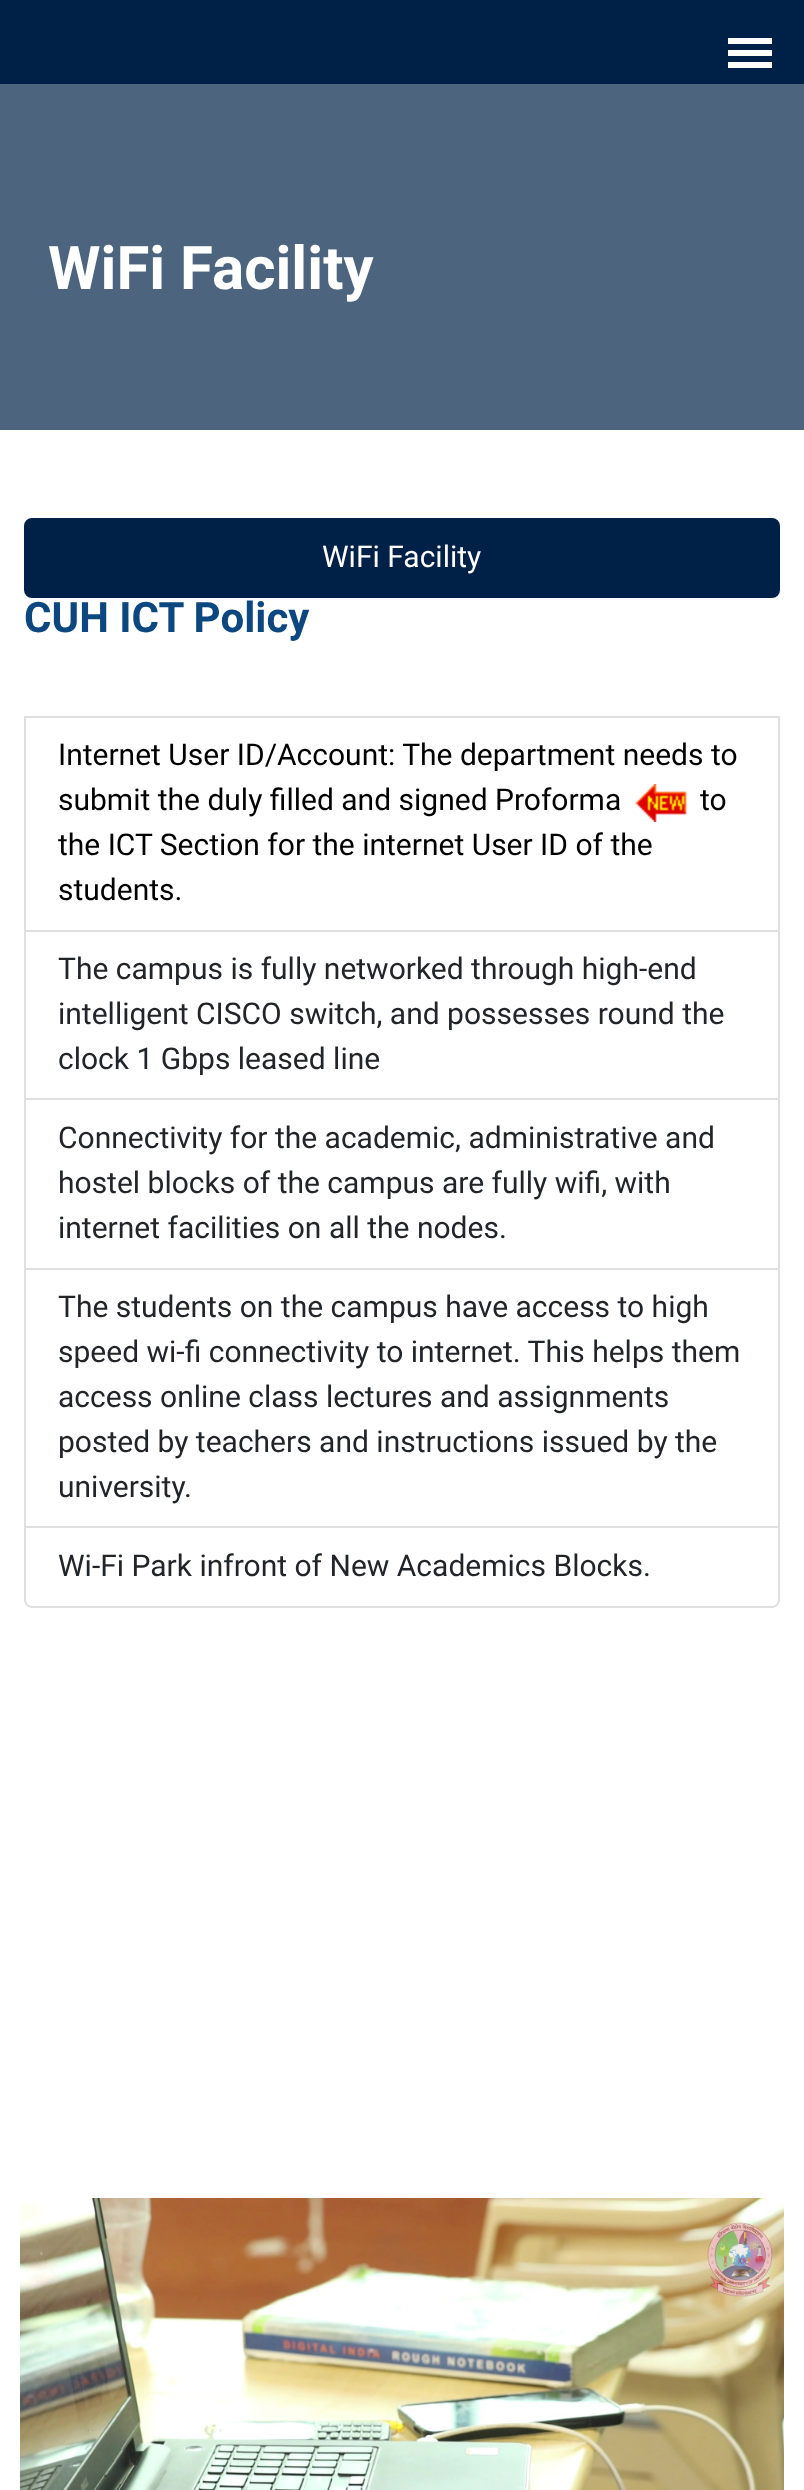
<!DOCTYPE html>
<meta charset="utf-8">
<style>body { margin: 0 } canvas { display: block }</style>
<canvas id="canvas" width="804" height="2490"></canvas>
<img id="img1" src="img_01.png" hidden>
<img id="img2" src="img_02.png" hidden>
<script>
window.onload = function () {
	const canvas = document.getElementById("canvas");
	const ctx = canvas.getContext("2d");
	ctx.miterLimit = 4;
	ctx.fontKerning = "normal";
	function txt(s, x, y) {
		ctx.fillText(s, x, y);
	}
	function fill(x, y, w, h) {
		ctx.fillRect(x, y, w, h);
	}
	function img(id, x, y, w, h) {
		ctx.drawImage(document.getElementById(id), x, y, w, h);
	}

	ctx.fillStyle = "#FFFFFF";
	fill(0, 0, 804, 2490);
	ctx.fillStyle = "#002147";
	fill(0, 0, 804, 84);
	ctx.fillStyle = "#FFFFFF";
	fill(728, 38, 44, 6);
	fill(728, 50, 44, 6);
	fill(728, 62, 44, 6);
	ctx.fillStyle = "#4D647E";
	fill(0, 84, 804, 346);
	ctx.fillStyle = "#002147";
	ctx.beginPath();
	ctx.roundRect(25, 519, 754, 78, 7);
	ctx.fill();
	ctx.strokeStyle = "#002147";
	ctx.lineWidth = 2;
	ctx.stroke();
	ctx.strokeStyle = "#DFDFDF";
	ctx.strokeRect(25, 717, 754, 214);
	img("img1", 635, 784, 52, 38);
	ctx.fillStyle = "#DFDFDF";
	ctx.beginPath();
	ctx.moveTo(780, 932);
	ctx.lineTo(780, 1100);
	ctx.lineTo(778, 1098);
	ctx.lineTo(778, 932);
	ctx.closePath();
	ctx.fill();
	ctx.fillStyle = "rgba(0, 0, 0, 0.12)";
	ctx.beginPath();
	ctx.moveTo(780, 1100);
	ctx.lineTo(24, 1100);
	ctx.lineTo(26, 1098);
	ctx.lineTo(778, 1098);
	ctx.closePath();
	ctx.fill();
	ctx.beginPath();
	ctx.moveTo(24, 1100);
	ctx.lineTo(24, 932);
	ctx.lineTo(26, 932);
	ctx.lineTo(26, 1098);
	ctx.closePath();
	ctx.fill();
	ctx.fillStyle = "#DFDFDF";
	ctx.beginPath();
	ctx.moveTo(780, 1100);
	ctx.lineTo(780, 1270);
	ctx.lineTo(778, 1268);
	ctx.lineTo(778, 1100);
	ctx.closePath();
	ctx.fill();
	ctx.fillStyle = "rgba(0, 0, 0, 0.12)";
	ctx.beginPath();
	ctx.moveTo(780, 1270);
	ctx.lineTo(24, 1270);
	ctx.lineTo(26, 1268);
	ctx.lineTo(778, 1268);
	ctx.closePath();
	ctx.fill();
	ctx.beginPath();
	ctx.moveTo(24, 1270);
	ctx.lineTo(24, 1100);
	ctx.lineTo(26, 1100);
	ctx.lineTo(26, 1268);
	ctx.closePath();
	ctx.fill();
	ctx.fillStyle = "#DFDFDF";
	ctx.beginPath();
	ctx.moveTo(780, 1270);
	ctx.lineTo(780, 1528);
	ctx.lineTo(778, 1526);
	ctx.lineTo(778, 1270);
	ctx.closePath();
	ctx.fill();
	ctx.fillStyle = "rgba(0, 0, 0, 0.12)";
	ctx.beginPath();
	ctx.moveTo(780, 1528);
	ctx.lineTo(24, 1528);
	ctx.lineTo(26, 1526);
	ctx.lineTo(778, 1526);
	ctx.closePath();
	ctx.fill();
	ctx.beginPath();
	ctx.moveTo(24, 1528);
	ctx.lineTo(24, 1270);
	ctx.lineTo(26, 1270);
	ctx.lineTo(26, 1526);
	ctx.closePath();
	ctx.fill();
	ctx.fillStyle = "#DFDFDF";
	ctx.beginPath();
	ctx.moveTo(24, 1528);
	ctx.lineTo(780, 1528);
	ctx.lineTo(780, 1600);
	ctx.bezierCurveTo(780, 1604, 776, 1608, 772, 1608);
	ctx.lineTo(32, 1608);
	ctx.bezierCurveTo(28, 1608, 24, 1604, 24, 1600);
	ctx.closePath();
	ctx.moveTo(26, 1528);
	ctx.lineTo(778, 1528);
	ctx.lineTo(778, 1600);
	ctx.bezierCurveTo(778, 1603, 775, 1606, 772, 1606);
	ctx.lineTo(32, 1606);
	ctx.bezierCurveTo(29, 1606, 26, 1603, 26, 1600);
	ctx.closePath();
	ctx.fill("evenodd");
	img("img2", 20, 2198, 764, 292);
	ctx.font = "bold 60px Roboto";
	ctx.fillStyle = "#FFFFFF";
	txt("WiFi Facility", 48, 289);
	ctx.font = "30px Roboto";
	txt("WiFi Facility", 322, 567);
	ctx.font = "bold 42px Roboto";
	ctx.fillStyle = "#0C477F";
	txt("CUH ICT Policy", 24, 632);
	ctx.font = "30px Roboto";
	ctx.fillStyle = "#000000";
	txt("Internet User ID/Account: The department needs to", 58, 765);
	txt("submit the duly filled and signed Proforma", 58, 810);
	txt("to", 700, 810);
	txt("the ICT Section for the internet User ID of the", 58, 855);
	txt("students.", 58, 900);
	ctx.fillStyle = "#212529";
	txt("The campus is fully networked through high-end", 58, 979);
	txt("intelligent CISCO switch, and possesses round the", 58, 1024);
	txt("clock 1 Gbps leased line", 58, 1069);
	txt("Connectivity for the academic, administrative and", 58, 1148);
	txt("hostel blocks of the campus are fully wifi, with", 58, 1193);
	txt("internet facilities on all the nodes.", 58, 1238);
	txt("The students on the campus have access to high", 58, 1317);
	txt("speed wi-fi connectivity to internet. This helps them", 58, 1362);
	txt("access online class lectures and assignments", 58, 1407);
	txt("posted by teachers and instructions issued by the", 58, 1452);
	txt("university.", 58, 1497);
	txt("Wi-Fi Park infront of New Academics Blocks.", 58, 1576);
};
</script>
